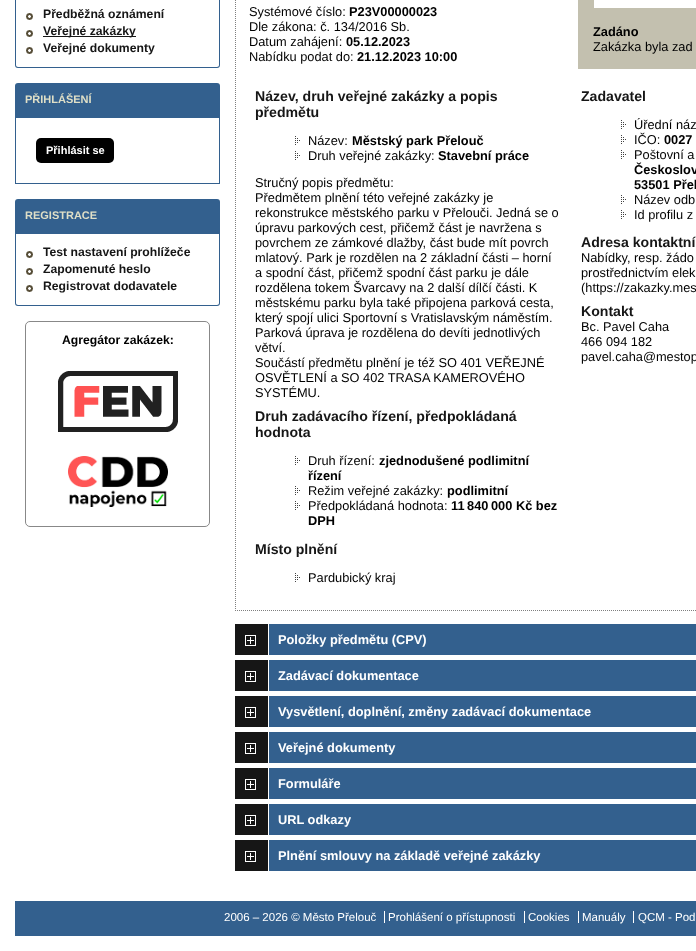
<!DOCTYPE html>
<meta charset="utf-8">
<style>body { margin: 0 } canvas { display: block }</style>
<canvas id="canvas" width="696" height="951"></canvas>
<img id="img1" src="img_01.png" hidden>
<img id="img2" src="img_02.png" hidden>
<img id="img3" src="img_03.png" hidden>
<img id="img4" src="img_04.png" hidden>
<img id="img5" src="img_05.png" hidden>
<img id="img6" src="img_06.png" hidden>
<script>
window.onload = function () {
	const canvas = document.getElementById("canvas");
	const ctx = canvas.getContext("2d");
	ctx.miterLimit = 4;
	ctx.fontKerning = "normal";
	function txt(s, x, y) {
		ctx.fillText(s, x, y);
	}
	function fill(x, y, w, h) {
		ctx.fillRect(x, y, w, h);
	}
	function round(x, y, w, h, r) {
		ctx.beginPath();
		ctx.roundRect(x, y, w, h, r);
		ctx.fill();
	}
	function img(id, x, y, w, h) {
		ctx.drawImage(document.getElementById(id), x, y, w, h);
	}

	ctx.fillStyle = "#FFFFFF";
	fill(0, 0, 696, 951);
	ctx.fillStyle = "#33608E";
	ctx.beginPath();
	ctx.moveTo(15, -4);
	ctx.lineTo(220, -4);
	ctx.lineTo(220, 65);
	ctx.bezierCurveTo(220, 67, 219, 68, 217, 68);
	ctx.lineTo(18, 68);
	ctx.bezierCurveTo(16, 68, 15, 67, 15, 65);
	ctx.closePath();
	ctx.moveTo(16, -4);
	ctx.lineTo(219, -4);
	ctx.lineTo(219, 65);
	ctx.bezierCurveTo(219, 66, 218, 67, 217, 67);
	ctx.lineTo(18, 67);
	ctx.bezierCurveTo(17, 67, 16, 66, 16, 65);
	ctx.closePath();
	ctx.fill("evenodd");
	img("img1", 26, 13, 7, 7);
	img("img1", 26, 30, 7, 7);
	ctx.fillStyle = "#161616";
	fill(43, 36, 93, 1);
	img("img1", 26, 47, 7, 7);
	ctx.fillStyle = "#33608E";
	ctx.beginPath();
	ctx.roundRect(15, 83, 205, 35, [3, 3, 0, 0]);
	ctx.fill();
	fill(219, 118, 1, 66);
	fill(15, 183, 205, 1);
	fill(15, 118, 1, 66);
	ctx.fillStyle = "#000000";
	round(36, 138, 78, 25, 5);
	ctx.fillStyle = "#33608E";
	ctx.beginPath();
	ctx.roundRect(15, 199, 205, 35, [3, 3, 0, 0]);
	ctx.fill();
	ctx.beginPath();
	ctx.moveTo(15, 234);
	ctx.lineTo(220, 234);
	ctx.lineTo(220, 303);
	ctx.bezierCurveTo(220, 305, 219, 306, 217, 306);
	ctx.lineTo(18, 306);
	ctx.bezierCurveTo(16, 306, 15, 305, 15, 303);
	ctx.closePath();
	ctx.moveTo(16, 234);
	ctx.lineTo(219, 234);
	ctx.lineTo(219, 303);
	ctx.bezierCurveTo(219, 304, 218, 305, 217, 305);
	ctx.lineTo(18, 305);
	ctx.bezierCurveTo(17, 305, 16, 304, 16, 303);
	ctx.closePath();
	ctx.fill("evenodd");
	img("img1", 26, 251, 7, 7);
	img("img1", 26, 268, 7, 7);
	img("img1", 26, 285, 7, 7);
	ctx.beginPath();
	ctx.roundRect(25.5, 321.5, 184, 205, 4.5);
	ctx.strokeStyle = "#888888";
	ctx.stroke();
	img("img2", 58, 371, 120, 61);
	img("img3", 68, 456, 100, 51);
	ctx.beginPath();
	ctx.moveTo(235, 610.5);
	ctx.lineTo(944, 610.5);
	ctx.strokeStyle = "#7F7F7F";
	ctx.setLineDash([1, 1]);
	ctx.stroke();
	ctx.beginPath();
	ctx.moveTo(235.5, -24);
	ctx.lineTo(235.5, 611);
	ctx.stroke();
	ctx.fillStyle = "#C3C0AF";
	fill(578, 0, 118, 69);
	ctx.fillStyle = "#FFFFFF";
	fill(594, 0, 102, 8);
	img("img4", 295, 136, 5, 9);
	img("img4", 295, 151, 5, 9);
	img("img4", 295, 456, 5, 9);
	img("img4", 295, 486, 5, 9);
	img("img4", 295, 501, 5, 9);
	img("img4", 295, 573, 5, 9);
	img("img4", 621, 120, 5, 9);
	img("img4", 621, 135, 5, 9);
	img("img4", 621, 150, 5, 9);
	img("img4", 621, 195, 5, 9);
	img("img4", 621, 210, 5, 9);
	img("img5", 235, 624, 461, 31);
	img("img6", 245, 635, 11, 11);
	img("img5", 235, 660, 461, 31);
	img("img6", 245, 671, 11, 11);
	img("img5", 235, 696, 461, 31);
	img("img6", 245, 707, 11, 11);
	img("img5", 235, 732, 461, 31);
	img("img6", 245, 743, 11, 11);
	img("img5", 235, 768, 461, 31);
	img("img6", 245, 779, 11, 11);
	img("img5", 235, 804, 461, 31);
	img("img6", 245, 815, 11, 11);
	img("img5", 235, 840, 461, 31);
	img("img6", 245, 851, 11, 11);
	ctx.fillStyle = "#33608E";
	fill(15, 901, 681, 35);
	ctx.fillStyle = "#FFFFFF";
	fill(384, 911, 1, 12);
	fill(524, 911, 1, 12);
	fill(578, 911, 1, 12);
	fill(633, 911, 1, 12);
	ctx.font = "bold 12.2px Liberation Sans";
	ctx.fillStyle = "#161616";
	txt("Předběžná oznámení", 43, 18);
	txt("Veřejné zakázky", 43, 35);
	txt("Veřejné dokumenty", 43, 52);
	ctx.font = "bold 11px Liberation Sans";
	ctx.fillStyle = "#DFDFC7";
	txt("PŘIHLÁŠENÍ", 25, 103);
	ctx.fillStyle = "#FFFFFF";
	txt("Přihlásit se", 46, 154);
	ctx.fillStyle = "#DFDFC7";
	txt("REGISTRACE", 25, 219);
	ctx.font = "bold 12.2px Liberation Sans";
	ctx.fillStyle = "#161616";
	txt("Test nastavení prohlížeče", 43, 256);
	txt("Zapomenuté heslo", 43, 273);
	txt("Registrovat dodavatele", 43, 290);
	ctx.fillStyle = "#000000";
	txt("Agregátor zakázek:", 62, 344);
	ctx.font = "12.8px Liberation Sans";
	txt("Systémové číslo:", 249, 16);
	ctx.font = "bold 12.8px Liberation Sans";
	txt("P23V00000023", 349, 16);
	ctx.font = "12.8px Liberation Sans";
	txt("Dle zákona: č. 134/2016 Sb.", 249, 31);
	ctx.font = "bold 12.8px Liberation Sans";
	txt("Zadáno", 593, 36);
	ctx.font = "12.8px Liberation Sans";
	txt("Zakázka byla zad", 593, 51);
	txt("Datum zahájení:", 249, 46);
	ctx.font = "bold 12.8px Liberation Sans";
	txt("05.12.2023", 346, 46);
	ctx.font = "12.8px Liberation Sans";
	txt("Nabídku podat do:", 249, 61);
	ctx.font = "bold 12.8px Liberation Sans";
	txt("21.12.2023 10:00", 357, 61);
	ctx.font = "bold 14.1px Liberation Sans";
	ctx.fillStyle = "#161616";
	txt("Název, druh veřejné zakázky a popis", 255, 101);
	txt("předmětu", 255, 117);
	ctx.font = "12.8px Liberation Sans";
	ctx.fillStyle = "#000000";
	txt("Název:", 308, 145);
	ctx.font = "bold 12.8px Liberation Sans";
	txt("Městský park Přelouč", 352, 145);
	ctx.font = "12.8px Liberation Sans";
	txt("Druh veřejné zakázky:", 308, 160);
	ctx.font = "bold 12.8px Liberation Sans";
	txt("Stavební práce", 438, 160);
	ctx.font = "12.8px Liberation Sans";
	txt("Stručný popis předmětu:", 255, 187);
	txt("Předmětem plnění této veřejné zakázky je", 255, 202);
	txt("rekonstrukce městského parku v Přelouči. Jedná se o", 255, 217);
	txt("úpravu parkových cest, přičemž část je navržena s", 255, 232);
	txt("povrchem ze zámkové dlažby, část bude mít povrch", 255, 247);
	txt("mlatový. Park je rozdělen na 2 základní části – horní", 255, 262);
	txt("a spodní část, přičemž spodní část parku je dále", 255, 277);
	txt("rozdělena tokem Švarcavy na 2 další dílčí části. K", 255, 292);
	txt("městskému parku byla také připojena parková cesta,", 255, 307);
	txt("který spojí ulici Sportovní s Vratislavským náměstím.", 255, 322);
	txt("Parková úprava je rozdělena do devíti jednotlivých", 255, 337);
	txt("větví.", 255, 352);
	txt("Součástí předmětu plnění je též SO 401 VEŘEJNÉ", 255, 367);
	txt("OSVĚTLENÍ a SO 402 TRASA KAMEROVÉHO", 255, 382);
	txt("SYSTÉMU.", 255, 397);
	ctx.font = "bold 14.1px Liberation Sans";
	ctx.fillStyle = "#161616";
	txt("Druh zadávacího řízení, předpokládaná", 255, 421);
	txt("hodnota", 255, 437);
	ctx.font = "12.8px Liberation Sans";
	ctx.fillStyle = "#000000";
	txt("Druh řízení:", 308, 465);
	ctx.font = "bold 12.8px Liberation Sans";
	txt("zjednodušené podlimitní", 379, 465);
	txt("řízení", 308, 480);
	ctx.font = "12.8px Liberation Sans";
	txt("Režim veřejné zakázky:", 308, 495);
	ctx.font = "bold 12.8px Liberation Sans";
	txt("podlimitní", 447, 495);
	ctx.font = "12.8px Liberation Sans";
	txt("Předpokládaná hodnota:", 308, 510);
	ctx.font = "bold 12.8px Liberation Sans";
	txt("11 840 000 Kč bez", 451, 510);
	txt("DPH", 308, 525);
	ctx.font = "bold 14.1px Liberation Sans";
	ctx.fillStyle = "#161616";
	txt("Místo plnění", 255, 554);
	ctx.font = "12.8px Liberation Sans";
	ctx.fillStyle = "#000000";
	txt("Pardubický kraj", 308, 582);
	ctx.font = "bold 14.1px Liberation Sans";
	ctx.fillStyle = "#161616";
	txt("Zadavatel", 581, 101);
	ctx.font = "12.8px Liberation Sans";
	ctx.fillStyle = "#000000";
	txt("Úřední náz", 634, 129);
	txt("IČO:", 634, 144);
	ctx.font = "bold 12.8px Liberation Sans";
	txt("0027", 664, 144);
	ctx.font = "12.8px Liberation Sans";
	txt("Poštovní a", 634, 159);
	ctx.font = "bold 12.8px Liberation Sans";
	txt("Českoslov", 634, 174);
	txt("53501 Přel", 634, 189);
	ctx.font = "12.8px Liberation Sans";
	txt("Název odb", 634, 204);
	txt("Id profilu z", 634, 219);
	ctx.font = "bold 14.1px Liberation Sans";
	ctx.fillStyle = "#161616";
	txt("Adresa kontaktní", 581, 247);
	ctx.font = "12.8px Liberation Sans";
	ctx.fillStyle = "#000000";
	txt("Nabídky, resp. žádo", 581, 262);
	txt("prostřednictvím elek", 581, 277);
	txt("(https://zakazky.mes", 581, 292);
	ctx.font = "bold 14.1px Liberation Sans";
	ctx.fillStyle = "#161616";
	txt("Kontakt", 581, 316);
	ctx.font = "12.8px Liberation Sans";
	ctx.fillStyle = "#000000";
	txt("Bc. Pavel Caha", 581, 331);
	txt("466 094 182", 581, 346);
	txt("pavel.caha@mestop", 581, 361);
	ctx.font = "bold 12.8px Liberation Sans";
	ctx.fillStyle = "#FFFFFF";
	txt("Položky předmětu (CPV)", 278, 644);
	txt("Zadávací dokumentace", 278, 680);
	txt("Vysvětlení, doplnění, změny zadávací dokumentace", 278, 716);
	txt("Veřejné dokumenty", 278, 752);
	txt("Formuláře", 278, 788);
	txt("URL odkazy", 278, 824);
	txt("Plnění smlouvy na základě veřejné zakázky", 278, 860);
	ctx.font = "11.5px Liberation Sans";
	txt("2006 – 2026 © Město Přelouč", 224, 921);
	txt("Prohlášení o přístupnosti", 388, 921);
	txt("Cookies", 528, 921);
	txt("Manuály", 582, 921);
	txt("QCM - Pod", 638, 921);
};
</script>
